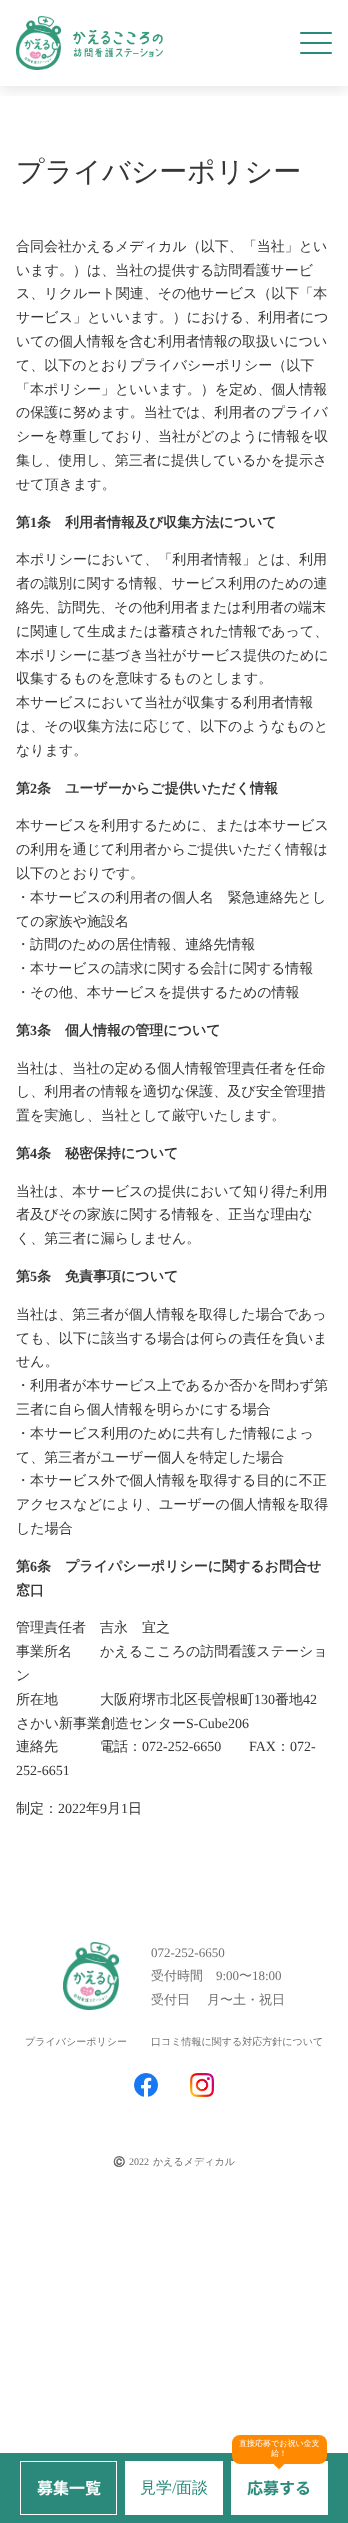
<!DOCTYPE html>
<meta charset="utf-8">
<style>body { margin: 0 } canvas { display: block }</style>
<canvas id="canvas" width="348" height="2523"></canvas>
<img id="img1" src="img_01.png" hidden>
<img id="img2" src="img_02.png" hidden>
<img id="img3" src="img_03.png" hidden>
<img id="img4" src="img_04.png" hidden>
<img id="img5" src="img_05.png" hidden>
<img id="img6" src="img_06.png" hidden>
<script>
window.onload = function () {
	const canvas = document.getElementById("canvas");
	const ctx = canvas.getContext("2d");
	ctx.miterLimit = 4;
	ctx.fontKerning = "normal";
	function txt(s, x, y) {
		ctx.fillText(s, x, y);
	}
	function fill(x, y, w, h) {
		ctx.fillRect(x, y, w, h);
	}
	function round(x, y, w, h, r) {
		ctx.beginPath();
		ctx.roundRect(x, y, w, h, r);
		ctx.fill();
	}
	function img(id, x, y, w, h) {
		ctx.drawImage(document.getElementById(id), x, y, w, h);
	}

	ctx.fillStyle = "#FFFFFF";
	fill(0, 0, 348, 2523);
	ctx.save();
	ctx.beginPath();
	ctx.rect(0, 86, 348, 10);
	ctx.clip();
	ctx.fillStyle = "rgba(0, 0, 0, 0.1)";
	ctx.filter = "blur(7.5px)";
	ctx.beginPath();
	ctx.rect(0, 4, 348, 86);
	ctx.fill();
	ctx.filter = "none";
	ctx.restore();
	img("img1", 16, 16, 45, 54);
	img("img2", 73, 30, 90, 27);
	ctx.fillStyle = "#2B897B";
	round(300, 32, 32, 2, 1);
	round(300, 42, 32, 2, 1);
	round(300, 52, 32, 2, 1);
	img("img3", 63, 1942, 56, 68);
	img("img4", 134, 2073, 24, 24);
	img("img5", 190, 2073, 24, 24);
	fill(0, 2453, 348, 70);
	ctx.strokeStyle = "#FFFFFF";
	ctx.strokeRect(20.5, 2461.5, 96, 53);
	ctx.fillStyle = "#FFFFFF";
	fill(125, 2461, 98, 54);
	fill(231, 2461, 97, 54);
	ctx.fillStyle = "#FF8900";
	round(232, 2435, 95, 29, 8);
	img("img6", 273, 2464, 12, 6);
	ctx.font = "500 28px WenQuanYi Zen Hei";
	ctx.fillStyle = "#363636";
	txt("プライバシーポリシー", 16, 181);
	ctx.font = "500 14px WenQuanYi Zen Hei";
	txt("合同会社かえるメディカル（以下、「当社」とい", 16, 251);
	txt("います。）は、当社の提供する訪問看護サービ", 16, 275);
	txt("ス、リクルート関連、その他サービス（以下「本", 16, 298);
	txt("サービス」といいます。）における、利用者につ", 16, 322);
	txt("いての個人情報を含む利用者情報の取扱いについ", 16, 346);
	txt("て、以下のとおりプライバシーポリシー（以下", 16, 370);
	txt("「本ポリシー」といいます。）を定め、個人情報", 16, 394);
	txt("の保護に努めます。当社では、利用者のプライバ", 16, 417);
	txt("シーを尊重しており、当社がどのように情報を収", 16, 441);
	txt("集し、使用し、第三者に提供しているかを提示さ", 16, 465);
	txt("せて頂きます。", 16, 489);
	ctx.font = "bold 14px WenQuanYi Zen Hei";
	txt("第", 16, 527);
	ctx.font = "bold 14px Liberation Serif";
	txt("1", 30, 527);
	ctx.font = "bold 14px WenQuanYi Zen Hei";
	txt("条　利用者情報及び収集方法について", 37, 527);
	ctx.font = "500 14px WenQuanYi Zen Hei";
	txt("本ポリシーにおいて、「利用者情報」とは、利用", 16, 564);
	txt("者の識別に関する情報、サービス利用のための連", 16, 588);
	txt("絡先、訪問先、その他利用者または利用者の端末", 16, 612);
	txt("に関連して生成または蓄積された情報であって、", 16, 636);
	txt("本ポリシーに基づき当社がサービス提供のために", 16, 660);
	txt("収集するものを意味するものとします。", 16, 683);
	txt("本サービスにおいて当社が収集する利用者情報", 16, 707);
	txt("は、その収集方法に応じて、以下のようなものと", 16, 731);
	txt("なります。", 16, 755);
	ctx.font = "bold 14px WenQuanYi Zen Hei";
	txt("第", 16, 793);
	ctx.font = "bold 14px Liberation Serif";
	txt("2", 30, 793);
	ctx.font = "bold 14px WenQuanYi Zen Hei";
	txt("条　ユーザーからご提供いただく情報", 37, 793);
	ctx.font = "500 14px WenQuanYi Zen Hei";
	txt("本サービスを利用するために、または本サービス", 16, 830);
	txt("の利用を通じて利用者からご提供いただく情報は", 16, 854);
	txt("以下のとおりです。", 16, 878);
	txt("・本サービスの利用者の個人名　緊急連絡先とし", 16, 902);
	txt("ての家族や施設名", 16, 926);
	txt("・訪問のための居住情報、連絡先情報", 16, 949);
	txt("・本サービスの請求に関する会計に関する情報", 16, 973);
	txt("・その他、本サービスを提供するための情報", 16, 997);
	ctx.font = "bold 14px WenQuanYi Zen Hei";
	txt("第", 16, 1035);
	ctx.font = "bold 14px Liberation Serif";
	txt("3", 30, 1035);
	ctx.font = "bold 14px WenQuanYi Zen Hei";
	txt("条　個人情報の管理について", 37, 1035);
	ctx.font = "500 14px WenQuanYi Zen Hei";
	txt("当社は、当社の定める個人情報管理責任者を任命", 16, 1073);
	txt("し、利用者の情報を適切な保護、及び安全管理措", 16, 1096);
	txt("置を実施し、当社として厳守いたします。", 16, 1120);
	ctx.font = "bold 14px WenQuanYi Zen Hei";
	txt("第", 16, 1158);
	ctx.font = "bold 14px Liberation Serif";
	txt("4", 30, 1158);
	ctx.font = "bold 14px WenQuanYi Zen Hei";
	txt("条　秘密保持について", 37, 1158);
	ctx.font = "500 14px WenQuanYi Zen Hei";
	txt("当社は、本サービスの提供において知り得た利用", 16, 1196);
	txt("者及びその家族に関する情報を、正当な理由な", 16, 1219);
	txt("く、第三者に漏らしません。", 16, 1243);
	ctx.font = "bold 14px WenQuanYi Zen Hei";
	txt("第", 16, 1281);
	ctx.font = "bold 14px Liberation Serif";
	txt("5", 30, 1281);
	ctx.font = "bold 14px WenQuanYi Zen Hei";
	txt("条　免責事項について", 37, 1281);
	ctx.font = "500 14px WenQuanYi Zen Hei";
	txt("当社は、第三者が個人情報を取得した場合であっ", 16, 1319);
	txt("ても、以下に該当する場合は何らの責任を負いま", 16, 1343);
	txt("せん。", 16, 1366);
	txt("・利用者が本サービス上であるか否かを問わず第", 16, 1390);
	txt("三者に自ら個人情報を明らかにする場合", 16, 1414);
	txt("・本サービス利用のために共有した情報によっ", 16, 1438);
	txt("て、第三者がユーザー個人を特定した場合", 16, 1462);
	txt("・本サービス外で個人情報を取得する目的に不正", 16, 1485);
	txt("アクセスなどにより、ユーザーの個人情報を取得", 16, 1509);
	txt("した場合", 16, 1533);
	ctx.font = "bold 14px WenQuanYi Zen Hei";
	txt("第", 16, 1571);
	ctx.font = "bold 14px Liberation Serif";
	txt("6", 30, 1571);
	ctx.font = "bold 14px WenQuanYi Zen Hei";
	txt("条　プライパシーポリシーに関するお問合せ", 37, 1571);
	txt("窓口", 16, 1595);
	ctx.font = "500 14px WenQuanYi Zen Hei";
	txt("管理責任者　吉永　宜之", 16, 1632);
	txt("事業所名　　かえるこころの訪問看護ステーショ", 16, 1656);
	txt("ン", 16, 1680);
	txt("所在地　　　大阪府堺市北区長曽根町", 16, 1704);
	ctx.font = "14px Liberation Serif";
	txt("130", 254, 1704);
	ctx.font = "500 14px WenQuanYi Zen Hei";
	txt("番地", 275, 1704);
	ctx.font = "14px Liberation Serif";
	txt("42", 303, 1704);
	ctx.font = "500 14px WenQuanYi Zen Hei";
	txt("さかい新事業創造センター", 16, 1728);
	ctx.font = "14px Liberation Serif";
	txt("S-Cube206", 186, 1728);
	ctx.font = "500 14px WenQuanYi Zen Hei";
	txt("連絡先　　　電話：", 16, 1751);
	ctx.font = "14px Liberation Serif";
	txt("072-252-6650", 142, 1751);
	txt("FAX", 249, 1751);
	ctx.font = "500 14px WenQuanYi Zen Hei";
	txt("：", 276, 1751);
	ctx.font = "14px Liberation Serif";
	txt("072-", 290, 1751);
	txt("252-6651", 16, 1775);
	ctx.font = "500 14px WenQuanYi Zen Hei";
	txt("制定：", 16, 1813);
	ctx.font = "14px Liberation Serif";
	txt("2022", 58, 1813);
	ctx.font = "500 14px WenQuanYi Zen Hei";
	txt("年", 86, 1813);
	ctx.font = "14px Liberation Serif";
	txt("9", 100, 1813);
	ctx.font = "500 14px WenQuanYi Zen Hei";
	txt("月", 107, 1813);
	ctx.font = "14px Liberation Serif";
	txt("1", 121, 1813);
	ctx.font = "500 14px WenQuanYi Zen Hei";
	txt("日", 128, 1813);
	ctx.font = "13px Liberation Serif";
	ctx.fillStyle = "#707070";
	txt("072-252-6650", 151, 1957);
	ctx.font = "500 13px WenQuanYi Zen Hei";
	txt("受付時間", 151, 1980);
	ctx.font = "13px Liberation Serif";
	txt("9:00", 216, 1980);
	ctx.font = "500 13px WenQuanYi Zen Hei";
	txt("〜", 239, 1980);
	ctx.font = "13px Liberation Serif";
	txt("18:00", 252, 1980);
	ctx.font = "500 13px WenQuanYi Zen Hei";
	txt("受付日", 151, 2004);
	txt("月〜土・祝日", 207, 2004);
	ctx.font = "500 10px WenQuanYi Zen Hei";
	txt("プライバシーポリシー", 25, 2045);
	txt("口コミ情報に関する対応方針について", 151, 2045);
	ctx.font = "10px Noto Color Emoji";
	txt("©️", 113, 2165);
	ctx.font = "10px Liberation Serif";
	txt("2022", 129, 2165);
	ctx.font = "500 10px WenQuanYi Zen Hei";
	txt("かえるメディカル", 153, 2165);
	ctx.font = "bold 16px Noto Sans JP";
	ctx.fillStyle = "#FFFFFF";
	txt("募集一覧", 37, 2494);
	ctx.font = "500 16px WenQuanYi Zen Hei";
	ctx.fillStyle = "#2B897B";
	txt("見学", 140, 2493);
	ctx.font = "16px Liberation Serif";
	txt("/", 172, 2493);
	ctx.font = "500 16px WenQuanYi Zen Hei";
	txt("面談", 176, 2493);
	ctx.font = "500 8px WenQuanYi Zen Hei";
	ctx.fillStyle = "#FFFFFF";
	txt("直接応募でお祝い金支", 239, 2446);
	txt("給！", 271, 2456);
	ctx.font = "bold 16px Noto Sans JP";
	ctx.fillStyle = "#2B897B";
	txt("応募する", 247, 2494);
};
</script>
